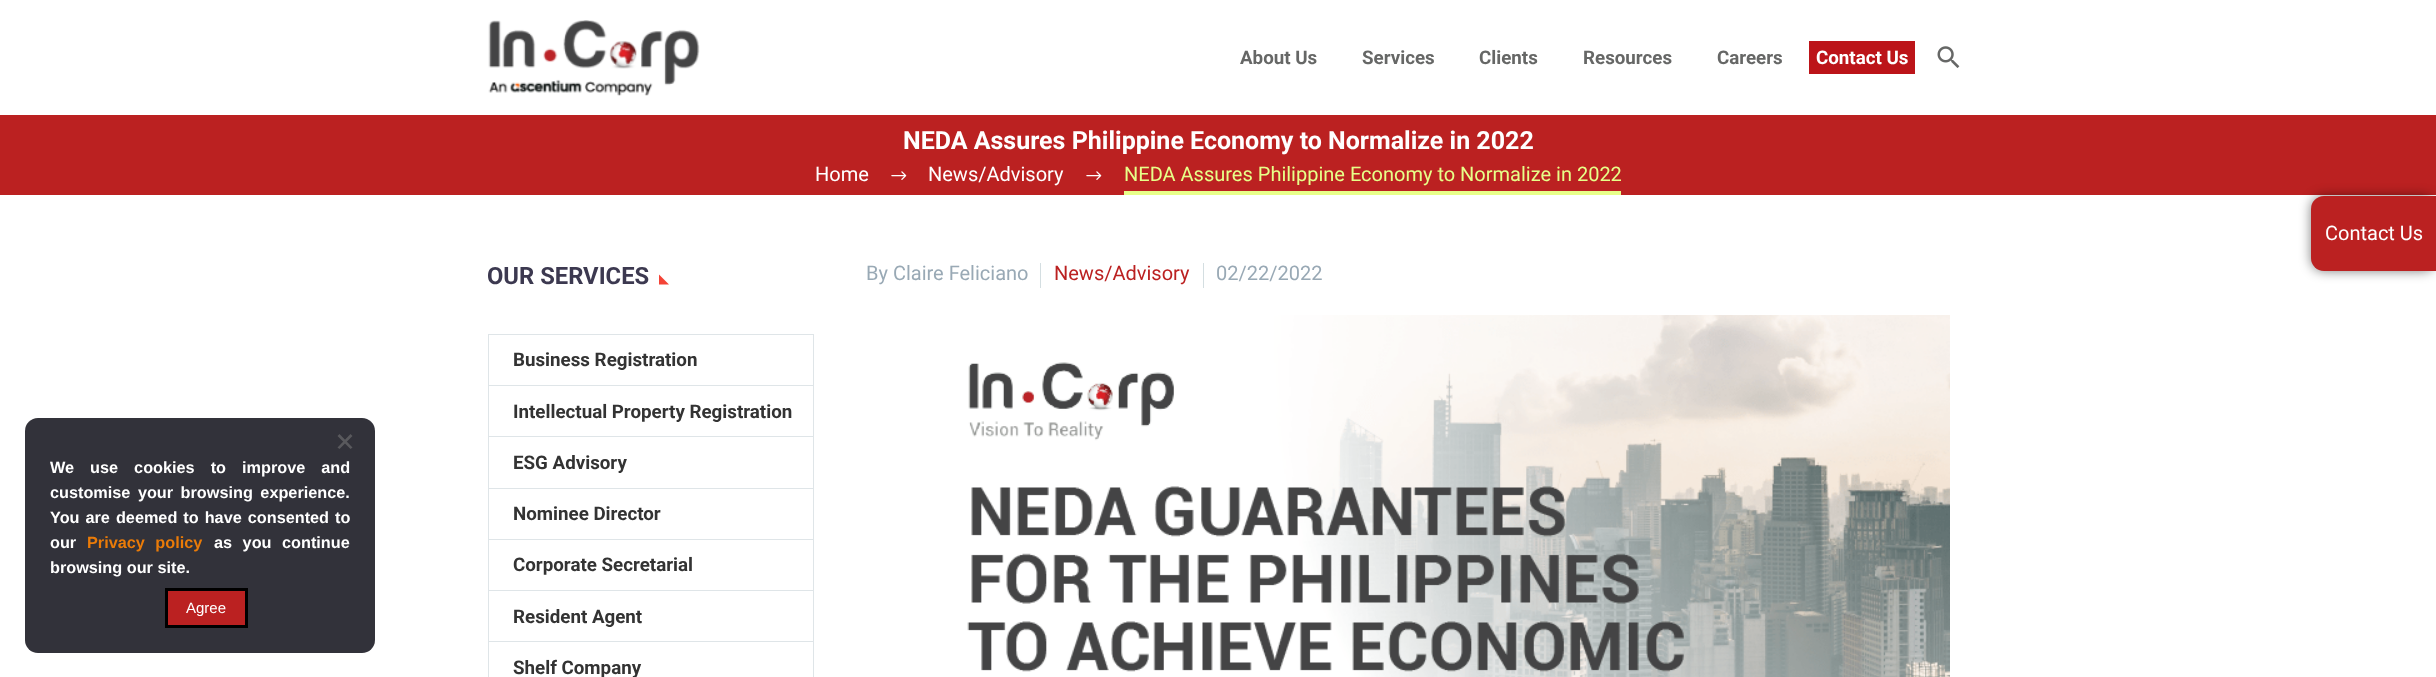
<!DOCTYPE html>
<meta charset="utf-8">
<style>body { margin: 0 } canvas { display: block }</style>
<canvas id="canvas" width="2436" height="677"></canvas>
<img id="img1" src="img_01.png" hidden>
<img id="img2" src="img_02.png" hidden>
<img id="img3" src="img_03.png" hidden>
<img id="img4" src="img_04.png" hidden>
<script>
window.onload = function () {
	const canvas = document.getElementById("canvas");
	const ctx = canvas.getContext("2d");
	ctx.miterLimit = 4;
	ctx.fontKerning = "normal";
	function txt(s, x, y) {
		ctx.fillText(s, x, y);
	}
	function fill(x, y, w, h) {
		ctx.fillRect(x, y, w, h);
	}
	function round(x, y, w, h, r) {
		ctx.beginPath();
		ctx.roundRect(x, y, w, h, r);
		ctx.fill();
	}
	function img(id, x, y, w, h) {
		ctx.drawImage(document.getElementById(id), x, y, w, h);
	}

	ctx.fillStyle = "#FFFFFF";
	fill(0, 0, 2436, 677);
	img("img1", 488, 20, 212, 76);
	ctx.fillStyle = "#BC1419";
	fill(1809, 41, 106, 33);
	img("img2", 1937, 46, 23, 22);
	ctx.fillStyle = "#BB2121";
	fill(0, 115, 2436, 80);
	img("img3", 891, 171, 16, 9);
	img("img3", 1086, 171, 16, 9);
	ctx.fillStyle = "#E7FF89";
	fill(1124, 191, 497, 4);
	ctx.fillStyle = "#F44336";
	ctx.beginPath();
	ctx.moveTo(659, 274.5);
	ctx.lineTo(659, 284.5);
	ctx.lineTo(669, 284.5);
	ctx.closePath();
	ctx.fill();
	ctx.fillStyle = "#DFE5E8";
	fill(813, 334, 1, 343);
	fill(488, 334, 1, 343);
	fill(489, 334, 324, 1);
	fill(489, 385, 324, 1);
	fill(489, 436, 324, 1);
	fill(489, 488, 324, 1);
	fill(489, 539, 324, 1);
	fill(489, 590, 324, 1);
	fill(489, 641, 324, 1);
	ctx.fillStyle = "#D4DEE1";
	fill(1040, 263, 1, 25);
	fill(1203, 263, 1, 25);
	img("img4", 967, 315, 983, 362);
	ctx.fillStyle = "rgba(0, 0, 0, 0.5)";
	ctx.filter = "blur(6px)";
	ctx.beginPath();
	ctx.roundRect(2311, 196, 125, 75, 13);
	ctx.fill();
	ctx.filter = "none";
	ctx.fillStyle = "#BB2121";
	ctx.beginPath();
	ctx.roundRect(2311, 196, 125, 75, [13, 0, 0, 13]);
	ctx.fill();
	ctx.fillStyle = "#32323A";
	round(25, 418, 350, 235, 13);
	ctx.fillStyle = "#59595D";
	ctx.beginPath();
	ctx.moveTo(350.5, 434);
	ctx.lineTo(352.5, 436);
	ctx.lineTo(339.5, 449);
	ctx.lineTo(337.5, 447.5);
	ctx.closePath();
	ctx.fill();
	ctx.beginPath();
	ctx.moveTo(337.5, 436);
	ctx.lineTo(339.5, 434);
	ctx.lineTo(352.5, 447.5);
	ctx.lineTo(350.5, 449);
	ctx.closePath();
	ctx.fill();
	ctx.fillStyle = "#BB2121";
	ctx.beginPath();
	ctx.rect(166.5, 589.5, 80, 37);
	ctx.fill();
	ctx.strokeStyle = "#000000";
	ctx.lineWidth = 3;
	ctx.stroke();
	ctx.font = "bold 18.75px Roboto";
	ctx.fillStyle = "#666766";
	txt("About Us", 1240, 64);
	txt("Services", 1362, 64);
	txt("Clients", 1479, 64);
	txt("Resources", 1583, 64);
	txt("Careers", 1717, 64);
	ctx.fillStyle = "#FFFFFF";
	txt("Contact Us", 1816, 64);
	ctx.font = "bold 25px Roboto";
	txt("NEDA Assures Philippine Economy to Normalize in 2022", 903, 149);
	ctx.font = "20px Roboto";
	txt("Home", 815, 181);
	txt("News/Advisory", 928, 181);
	ctx.fillStyle = "#E7FF89";
	txt("NEDA Assures Philippine Economy to Normalize in 2022", 1124, 181);
	ctx.font = "bold 23.75px Roboto";
	ctx.fillStyle = "#3C3950";
	txt("OUR SERVICES", 487, 284);
	ctx.font = "bold 18.75px Roboto";
	ctx.fillStyle = "#333333";
	txt("Business Registration", 513, 366);
	txt("Intellectual Property Registration", 513, 418);
	txt("ESG Advisory", 513, 469);
	txt("Nominee Director", 513, 520);
	txt("Corporate Secretarial", 513, 571);
	txt("Resident Agent", 513, 623);
	txt("Shelf Company", 513, 674);
	ctx.font = "20px Roboto";
	ctx.fillStyle = "#99A9B5";
	txt("By Claire Feliciano", 866, 280);
	ctx.fillStyle = "#BB2121";
	txt("News/Advisory", 1054, 280);
	ctx.fillStyle = "#99A9B5";
	txt("02/22/2022", 1216, 280);
	ctx.fillStyle = "#FFFFFF";
	txt("Contact Us", 2325, 240);
	ctx.wordSpacing = "11.5px";
	ctx.font = "bold 16.25px Liberation Sans";
	txt("We use cookies to improve and", 50, 473);
	ctx.wordSpacing = "3px";
	txt("customise your browsing experience.", 50, 498);
	ctx.wordSpacing = "1.5px";
	txt("You are deemed to have consented to", 50, 523);
	ctx.wordSpacing = "0px";
	txt("our", 50, 548);
	ctx.wordSpacing = "6px";
	ctx.fillStyle = "#EA7B08";
	txt("Privacy policy", 87, 548);
	ctx.fillStyle = "#FFFFFF";
	txt("as you continue", 214, 548);
	ctx.wordSpacing = "0px";
	txt("browsing our site.", 50, 573);
	ctx.font = "15px Liberation Sans";
	txt("Agree", 186, 613);
};
</script>
